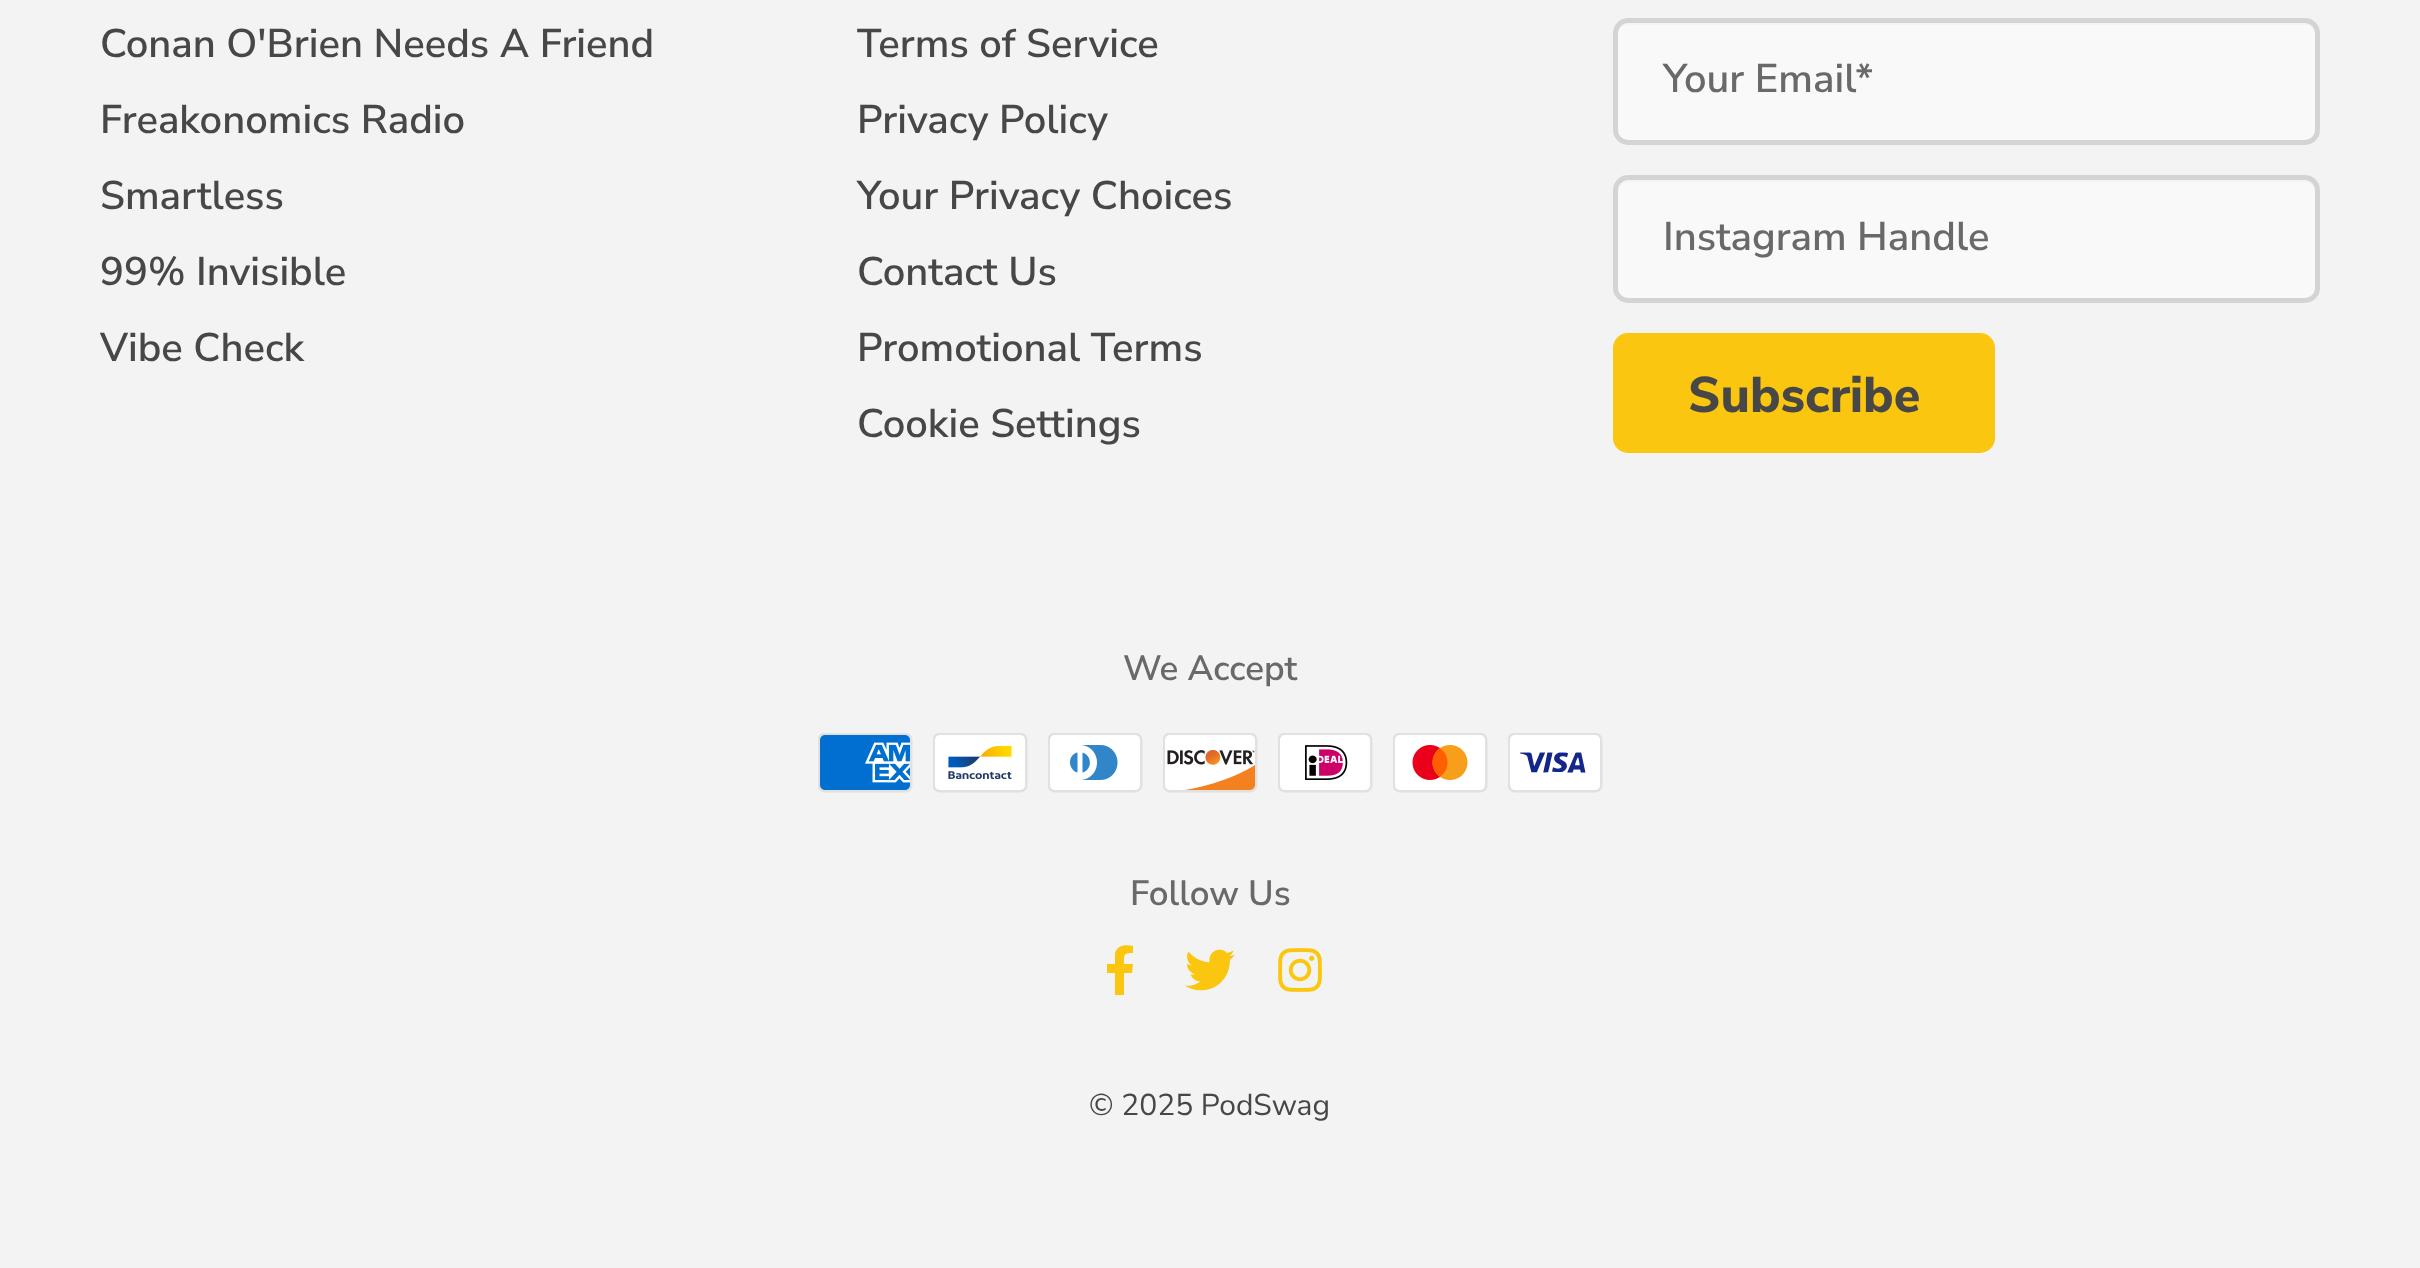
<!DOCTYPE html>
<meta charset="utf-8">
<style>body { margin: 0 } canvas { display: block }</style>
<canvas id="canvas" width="2420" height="1268"></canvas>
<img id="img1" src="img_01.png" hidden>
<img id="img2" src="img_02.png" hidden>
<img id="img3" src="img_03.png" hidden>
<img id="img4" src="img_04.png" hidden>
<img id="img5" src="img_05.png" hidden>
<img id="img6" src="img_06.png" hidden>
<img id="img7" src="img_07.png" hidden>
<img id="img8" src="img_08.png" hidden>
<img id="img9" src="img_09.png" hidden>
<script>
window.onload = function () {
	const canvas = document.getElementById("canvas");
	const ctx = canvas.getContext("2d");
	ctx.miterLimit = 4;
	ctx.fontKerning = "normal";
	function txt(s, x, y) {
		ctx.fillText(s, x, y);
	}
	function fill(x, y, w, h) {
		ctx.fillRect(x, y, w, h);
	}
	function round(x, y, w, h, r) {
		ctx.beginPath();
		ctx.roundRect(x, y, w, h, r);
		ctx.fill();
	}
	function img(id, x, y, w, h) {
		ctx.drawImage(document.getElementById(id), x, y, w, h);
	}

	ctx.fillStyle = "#F3F3F3";
	fill(0, 0, 2420, 1268);
	ctx.fillStyle = "#F9F9F9";
	round(1613, 18, 707, 127, 15);
	ctx.fillStyle = "#F3F4F4";
	ctx.beginPath();
	ctx.moveTo(1628, 25);
	ctx.lineTo(2305, 25);
	ctx.bezierCurveTo(2311, 25, 2315, 29, 2315, 35);
	ctx.lineTo(2315, 33);
	ctx.bezierCurveTo(2315, 27, 2311, 23, 2305, 23);
	ctx.lineTo(1628, 23);
	ctx.bezierCurveTo(1622, 23, 1618, 27, 1618, 33);
	ctx.lineTo(1618, 35);
	ctx.bezierCurveTo(1618, 29, 1622, 25, 1628, 25);
	ctx.closePath();
	ctx.fill();
	ctx.beginPath();
	ctx.roundRect(1615.5, 20.5, 702, 122, 12.5);
	ctx.strokeStyle = "#D4D4D4";
	ctx.lineWidth = 5;
	ctx.stroke();
	ctx.fillStyle = "#F9F9F9";
	round(1613, 175, 707, 128, 15);
	ctx.fillStyle = "#F3F4F4";
	ctx.beginPath();
	ctx.moveTo(1628, 182);
	ctx.lineTo(2305, 182);
	ctx.bezierCurveTo(2311, 182, 2315, 187, 2315, 192);
	ctx.lineTo(2315, 190);
	ctx.bezierCurveTo(2315, 184, 2311, 180, 2305, 180);
	ctx.lineTo(1628, 180);
	ctx.bezierCurveTo(1622, 180, 1618, 184, 1618, 190);
	ctx.lineTo(1618, 192);
	ctx.bezierCurveTo(1618, 187, 1622, 182, 1628, 182);
	ctx.closePath();
	ctx.fill();
	ctx.beginPath();
	ctx.roundRect(1615.5, 177.5, 702, 123, 12.5);
	ctx.stroke();
	ctx.fillStyle = "#FAC60F";
	round(1613, 333, 382, 120, 15);
	img("img1", 818, 733, 95, 60);
	img("img2", 933, 733, 95, 60);
	img("img3", 1048, 733, 95, 60);
	img("img4", 1163, 733, 95, 60);
	img("img5", 1278, 733, 95, 60);
	img("img6", 1393, 733, 95, 60);
	img("img7", 1508, 733, 95, 60);
	ctx.beginPath();
	ctx.moveTo(1132, 973);
	ctx.lineTo(1133, 964);
	ctx.lineTo(1124, 964);
	ctx.bezierCurveTo(1124, 955, 1123, 953, 1133, 953);
	ctx.lineTo(1133, 946);
	ctx.bezierCurveTo(1126, 944, 1116, 945, 1115, 954);
	ctx.lineTo(1115, 964);
	ctx.lineTo(1107, 964);
	ctx.lineTo(1107, 973);
	ctx.lineTo(1115, 973);
	ctx.lineTo(1115, 995);
	ctx.lineTo(1124, 995);
	ctx.lineTo(1124, 973);
	ctx.closePath();
	ctx.fill();
	img("img8", 1185, 949, 50, 42);
	img("img9", 1278, 948, 44, 44);
	ctx.font = "600 40px Nunito Sans";
	ctx.fillStyle = "#474747";
	txt("Conan O'Brien Needs A Friend", 100, 57);
	txt("Freakonomics Radio", 100, 133);
	txt("Smartless", 100, 209);
	txt("99% Invisible", 100, 285);
	txt("Vibe Check", 100, 361);
	txt("Terms of Service", 857, 57);
	txt("Privacy Policy", 857, 133);
	txt("Your Privacy Choices", 857, 209);
	txt("Contact Us", 857, 285);
	txt("Promotional Terms", 857, 361);
	txt("Cookie Settings", 857, 437);
	ctx.fillStyle = "#696969";
	txt("Your Email*", 1663, 92);
	txt("Instagram Handle", 1663, 250);
	ctx.font = "800 50px Nunito Sans";
	ctx.fillStyle = "#474747";
	txt("Subscribe", 1688, 412);
	ctx.font = "600 35px Nunito Sans";
	ctx.fillStyle = "#696969";
	txt("We Accept", 1123, 680);
	txt("Follow Us", 1130, 905);
	ctx.font = "30px Nunito Sans";
	ctx.fillStyle = "#474747";
	txt("© 2025 PodSwag", 1089, 1115);
};
</script>
